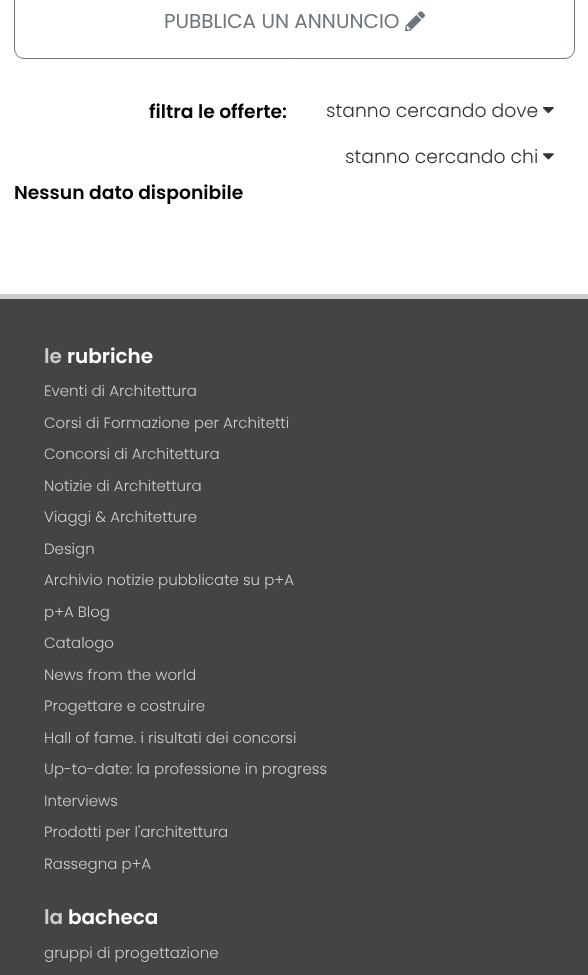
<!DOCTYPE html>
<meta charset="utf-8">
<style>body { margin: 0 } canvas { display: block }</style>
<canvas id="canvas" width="588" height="975"></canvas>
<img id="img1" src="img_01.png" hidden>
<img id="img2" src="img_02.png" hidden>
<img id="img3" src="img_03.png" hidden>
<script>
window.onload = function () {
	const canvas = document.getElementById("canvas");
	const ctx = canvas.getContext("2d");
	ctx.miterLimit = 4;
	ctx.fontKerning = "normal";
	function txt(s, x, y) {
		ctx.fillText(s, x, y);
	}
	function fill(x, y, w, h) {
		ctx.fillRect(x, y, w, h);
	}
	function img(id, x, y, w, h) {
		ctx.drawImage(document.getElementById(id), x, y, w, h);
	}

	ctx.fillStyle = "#FFFFFF";
	fill(0, 0, 588, 975);
	ctx.beginPath();
	ctx.roundRect(14.5, -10.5, 560, 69, 9.5);
	ctx.strokeStyle = "#6C757D";
	ctx.stroke();
	img("img1", 405, 11, 20, 21);
	img("img2", 542, 107, 12, 7);
	img("img3", 543, 153, 11, 7);
	ctx.fillStyle = "#444444";
	fill(0, 299, 588, 676);
	ctx.fillStyle = "#CCCCCC";
	fill(0, 294, 588, 5);
	ctx.font = "20px Poppins";
	ctx.fillStyle = "#6C757D";
	txt("PUBBLICA UN ANNUNCIO", 164, 28);
	ctx.font = "600 18.75px Poppins";
	ctx.fillStyle = "#000000";
	txt("filtra le offerte:", 149, 118);
	ctx.font = "300 18.75px Poppins";
	ctx.fillStyle = "#333333";
	txt("stanno cercando dove", 326, 117);
	txt("stanno cercando chi", 345, 163);
	ctx.font = "600 18.75px Poppins";
	ctx.fillStyle = "#000000";
	txt("Nessun dato disponibile", 14, 199);
	ctx.font = "600 20px Poppins";
	ctx.fillStyle = "#CCCCCC";
	txt("le", 44, 363);
	ctx.fillStyle = "#FFFFFF";
	txt("rubriche", 67, 363);
	ctx.font = "300 15px Poppins";
	ctx.fillStyle = "#CCCCCC";
	txt("Eventi di Architettura", 44, 396);
	txt("Corsi di Formazione per Architetti", 44, 428);
	txt("Concorsi di Architettura", 44, 459);
	txt("Notizie di Architettura", 44, 491);
	txt("Viaggi & Architetture", 44, 522);
	txt("Design", 44, 554);
	txt("Archivio notizie pubblicate su p+A", 44, 585);
	txt("p+A Blog", 44, 617);
	txt("Catalogo", 44, 648);
	txt("News from the world", 44, 680);
	txt("Progettare e costruire", 44, 711);
	txt("Hall of fame. i risultati dei concorsi", 44, 743);
	txt("Up-to-date: la professione in progress", 44, 774);
	txt("Interviews", 44, 806);
	txt("Prodotti per l'architettura", 44, 837);
	txt("Rassegna p+A", 44, 869);
	ctx.font = "600 20px Poppins";
	txt("la", 44, 924);
	ctx.fillStyle = "#FFFFFF";
	txt("bacheca", 68, 924);
	ctx.font = "300 15px Poppins";
	ctx.fillStyle = "#CCCCCC";
	txt("gruppi di progettazione", 44, 958);
};
</script>
